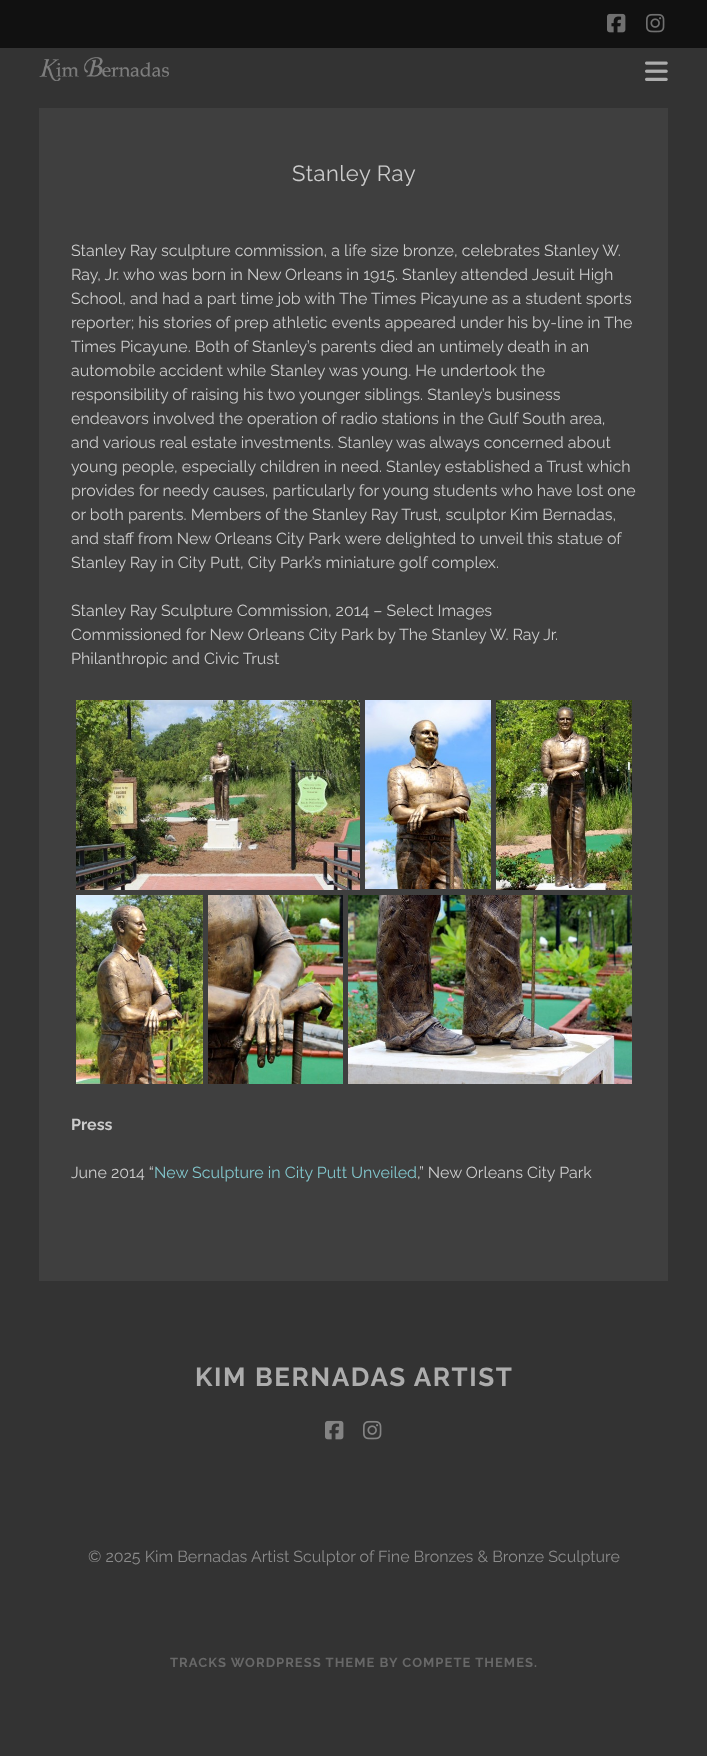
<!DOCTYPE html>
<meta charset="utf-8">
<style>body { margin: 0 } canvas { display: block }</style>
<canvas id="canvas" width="707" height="1756"></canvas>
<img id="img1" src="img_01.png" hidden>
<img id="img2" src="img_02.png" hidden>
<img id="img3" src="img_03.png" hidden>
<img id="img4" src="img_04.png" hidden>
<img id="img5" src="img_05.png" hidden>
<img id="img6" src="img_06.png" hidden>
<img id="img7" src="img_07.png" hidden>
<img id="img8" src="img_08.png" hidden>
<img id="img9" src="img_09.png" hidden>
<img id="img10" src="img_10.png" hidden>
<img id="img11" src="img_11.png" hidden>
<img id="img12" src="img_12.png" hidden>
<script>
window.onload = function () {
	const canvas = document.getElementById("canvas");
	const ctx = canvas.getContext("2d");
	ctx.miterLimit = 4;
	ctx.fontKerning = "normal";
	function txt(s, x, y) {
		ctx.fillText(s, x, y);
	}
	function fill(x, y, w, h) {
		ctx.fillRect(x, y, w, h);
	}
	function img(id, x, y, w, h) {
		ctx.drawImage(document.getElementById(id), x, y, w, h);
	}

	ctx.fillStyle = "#333333";
	fill(0, 0, 707, 1756);
	ctx.fillStyle = "#111111";
	fill(0, 0, 707, 48);
	img("img1", 607, 13, 19, 20);
	img("img2", 646, 13, 19, 20);
	img("img3", 39, 57, 130, 24);
	img("img4", 645, 61, 23, 20);
	ctx.fillStyle = "#3F3F3F";
	fill(39, 108, 629, 1173);
	img("img5", 76, 700, 284, 190);
	img("img6", 365, 700, 126, 189);
	img("img7", 496, 700, 136, 190);
	img("img8", 76, 895, 127, 189);
	img("img9", 208, 895, 135, 189);
	img("img10", 348, 895, 284, 189);
	img("img11", 325, 1420, 19, 20);
	img("img12", 363, 1420, 19, 20);
	ctx.letterSpacing = "0.5px";
	ctx.font = "22px Raleway";
	ctx.fillStyle = "#CCCCCC";
	txt("Stanley Ray", 292, 181);
	ctx.letterSpacing = "0px";
	ctx.font = "16px Raleway";
	txt("Stanley Ray sculpture commission, a life size bronze, celebrates Stanley W.", 71, 256);
	txt("Ray, Jr. who was born in New Orleans in 1915. Stanley attended Jesuit High", 71, 280);
	txt("School, and had a part time job with The Times Picayune as a student sports", 71, 304);
	txt("reporter; his stories of prep athletic events appeared under his by-line in The", 71, 328);
	txt("Times Picayune. Both of Stanley’s parents died an untimely death in an", 71, 352);
	txt("automobile accident while Stanley was young. He undertook the", 71, 376);
	txt("responsibility of raising his two younger siblings. Stanley’s business", 71, 400);
	txt("endeavors involved the operation of radio stations in the Gulf South area,", 71, 424);
	txt("and various real estate investments. Stanley was always concerned about", 71, 448);
	txt("young people, especially children in need. Stanley established a Trust which", 71, 472);
	txt("provides for needy causes, particularly for young students who have lost one", 71, 496);
	txt("or both parents. Members of the Stanley Ray Trust, sculptor Kim Bernadas,", 71, 520);
	txt("and staff from New Orleans City Park were delighted to unveil this statue of", 71, 544);
	txt("Stanley Ray in City Putt, City Park’s miniature golf complex.", 71, 568);
	txt("Stanley Ray Sculpture Commission, 2014 – Select Images", 71, 616);
	txt("Commissioned for New Orleans City Park by The Stanley W. Ray Jr.", 71, 640);
	txt("Philanthropic and Civic Trust", 71, 664);
	ctx.font = "bold 16px Raleway";
	txt("Press", 71, 1130);
	ctx.font = "16px Raleway";
	txt("June 2014 “", 71, 1178);
	ctx.fillStyle = "#82C6CC";
	txt("New Sculpture in City Putt Unveiled", 154, 1178);
	ctx.fillStyle = "#CCCCCC";
	txt(",” New Orleans City Park", 417, 1178);
	ctx.letterSpacing = "1.6px";
	ctx.font = "bold 26px Raleway";
	ctx.fillStyle = "#ADADAD";
	txt("KIM BERNADAS ARTIST", 195, 1386);
	ctx.letterSpacing = "0px";
	ctx.font = "16px Raleway";
	ctx.fillStyle = "#8C8C8C";
	txt("© 2025 Kim Bernadas Artist Sculptor of Fine Bronzes & Bronze Sculpture", 88, 1562);
	ctx.letterSpacing = "1.05px";
	ctx.font = "bold 13px Raleway";
	ctx.fillStyle = "#686868";
	txt("TRACKS WORDPRESS THEME BY COMPETE THEMES.", 170, 1667);
};
</script>
